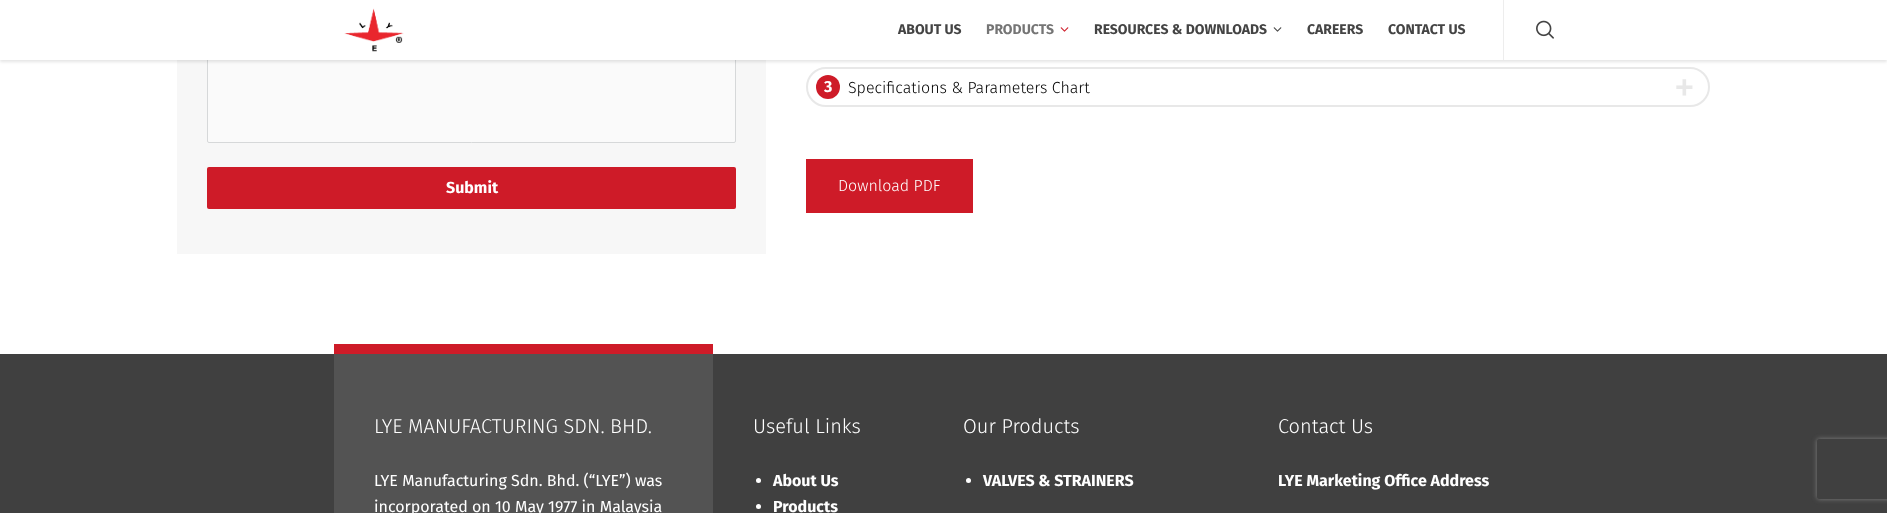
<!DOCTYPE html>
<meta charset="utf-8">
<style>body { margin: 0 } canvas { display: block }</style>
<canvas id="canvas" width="1887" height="513"></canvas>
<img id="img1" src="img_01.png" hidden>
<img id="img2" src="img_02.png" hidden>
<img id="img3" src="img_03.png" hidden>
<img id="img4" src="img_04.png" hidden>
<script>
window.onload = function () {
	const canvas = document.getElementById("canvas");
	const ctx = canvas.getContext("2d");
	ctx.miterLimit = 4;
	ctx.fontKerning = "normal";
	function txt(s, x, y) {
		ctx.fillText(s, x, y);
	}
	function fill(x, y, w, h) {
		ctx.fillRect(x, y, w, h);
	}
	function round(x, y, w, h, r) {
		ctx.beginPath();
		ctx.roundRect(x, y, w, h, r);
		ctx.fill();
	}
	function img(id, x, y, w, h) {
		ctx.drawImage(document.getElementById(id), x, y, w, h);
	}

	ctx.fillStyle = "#FFFFFF";
	fill(0, 0, 1887, 513);
	ctx.fillStyle = "#F7F7F7";
	fill(177, 60, 589, 194);
	ctx.fillStyle = "#FAFAFA";
	ctx.beginPath();
	ctx.roundRect(207.5, 7.5, 528, 135, 1.5);
	ctx.fill();
	ctx.strokeStyle = "#D6D8D9";
	ctx.stroke();
	ctx.beginPath();
	ctx.roundRect(807, 68, 902, 38, 19);
	ctx.strokeStyle = "#E8E8E8";
	ctx.lineWidth = 2;
	ctx.stroke();
	ctx.fillStyle = "rgba(0, 0, 0, 0.1)";
	ctx.filter = "blur(1.5px)";
	ctx.beginPath();
	ctx.rect(0, 2, 1887, 60);
	ctx.fill();
	ctx.filter = "none";
	ctx.fillStyle = "#FFFFFF";
	fill(0, 0, 1887, 60);
	img("img1", 344, 8, 60, 44);
	ctx.fillStyle = "#EDEDED";
	fill(1503, 0, 1, 60);
	img("img2", 1060, 27, 9, 5);
	img("img3", 1273, 27, 9, 5);
	img("img4", 1536, 20, 18, 19);
	ctx.fillStyle = "#CE1B28";
	round(207, 167, 529, 42, 2);
	ctx.beginPath();
	ctx.arc(828, 87, 12, 0, Math.PI * 2);
	ctx.fill();
	fill(806, 159, 167, 54);
	ctx.fillStyle = "#404040";
	fill(0, 354, 1887, 159);
	ctx.fillStyle = "#535353";
	fill(334, 354, 379, 159);
	ctx.fillStyle = "#CE1B28";
	fill(334, 344, 379, 10);
	ctx.fillStyle = "#FFFFFF";
	ctx.beginPath();
	ctx.arc(758.5, 480.5, 2.5, 0, Math.PI * 2);
	ctx.fill();
	ctx.beginPath();
	ctx.arc(758.5, 506.5, 2.5, 0, Math.PI * 2);
	ctx.fill();
	ctx.beginPath();
	ctx.arc(968.5, 480.5, 2.5, 0, Math.PI * 2);
	ctx.fill();
	ctx.save();
	ctx.beginPath();
	ctx.moveTo(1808, 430);
	ctx.lineTo(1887, 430);
	ctx.lineTo(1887, 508);
	ctx.lineTo(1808, 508);
	ctx.closePath();
	ctx.moveTo(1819, 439);
	ctx.lineTo(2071, 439);
	ctx.bezierCurveTo(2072, 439, 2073, 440, 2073, 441);
	ctx.lineTo(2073, 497);
	ctx.bezierCurveTo(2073, 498, 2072, 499, 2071, 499);
	ctx.lineTo(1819, 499);
	ctx.bezierCurveTo(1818, 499, 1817, 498, 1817, 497);
	ctx.lineTo(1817, 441);
	ctx.bezierCurveTo(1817, 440, 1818, 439, 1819, 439);
	ctx.closePath();
	ctx.clip("evenodd");
	ctx.fillStyle = "#808080";
	ctx.filter = "blur(2.5px)";
	ctx.beginPath();
	ctx.roundRect(1817, 439, 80, 60, 2);
	ctx.fill();
	ctx.filter = "none";
	ctx.restore();
	ctx.font = "bold 14px Fira Sans";
	ctx.fillStyle = "#444444";
	txt("ABOUT US", 898, 34);
	ctx.fillStyle = "#757575";
	txt("PRODUCTS", 986, 34);
	ctx.fillStyle = "#444444";
	txt("RESOURCES & DOWNLOADS", 1094, 34);
	txt("CAREERS", 1307, 34);
	txt("CONTACT US", 1388, 34);
	ctx.font = "bold 16px Fira Sans";
	ctx.fillStyle = "#FFFFFF";
	txt("Submit", 446, 193);
	txt("3", 824, 92);
	ctx.font = "300 16px Fira Sans";
	ctx.fillStyle = "#000000";
	txt("Specifications & Parameters Chart", 848, 93);
	ctx.font = "bold 32px Liberation Sans";
	ctx.fillStyle = "#E8E8E8";
	txt("+", 1675, 98);
	ctx.font = "300 16px Fira Sans";
	ctx.fillStyle = "#FFFFFF";
	txt("Download PDF", 838, 191);
	ctx.font = "300 20px Fira Sans";
	txt("LYE MANUFACTURING SDN. BHD.", 374, 433);
	ctx.font = "16px Fira Sans";
	txt("LYE Manufacturing Sdn. Bhd. (“LYE”) was", 374, 486);
	txt("incorporated on 10 May 1977 in Malaysia", 374, 512);
	ctx.font = "300 20px Fira Sans";
	txt("Useful Links", 753, 433);
	ctx.font = "bold 16px Fira Sans";
	txt("About Us", 773, 486);
	txt("Products", 773, 512);
	ctx.font = "300 20px Fira Sans";
	txt("Our Products", 963, 433);
	ctx.font = "bold 16px Fira Sans";
	txt("VALVES & STRAINERS", 983, 486);
	ctx.font = "300 20px Fira Sans";
	txt("Contact Us", 1278, 433);
	ctx.font = "bold 16px Fira Sans";
	txt("LYE Marketing Office Address", 1278, 486);
};
</script>
